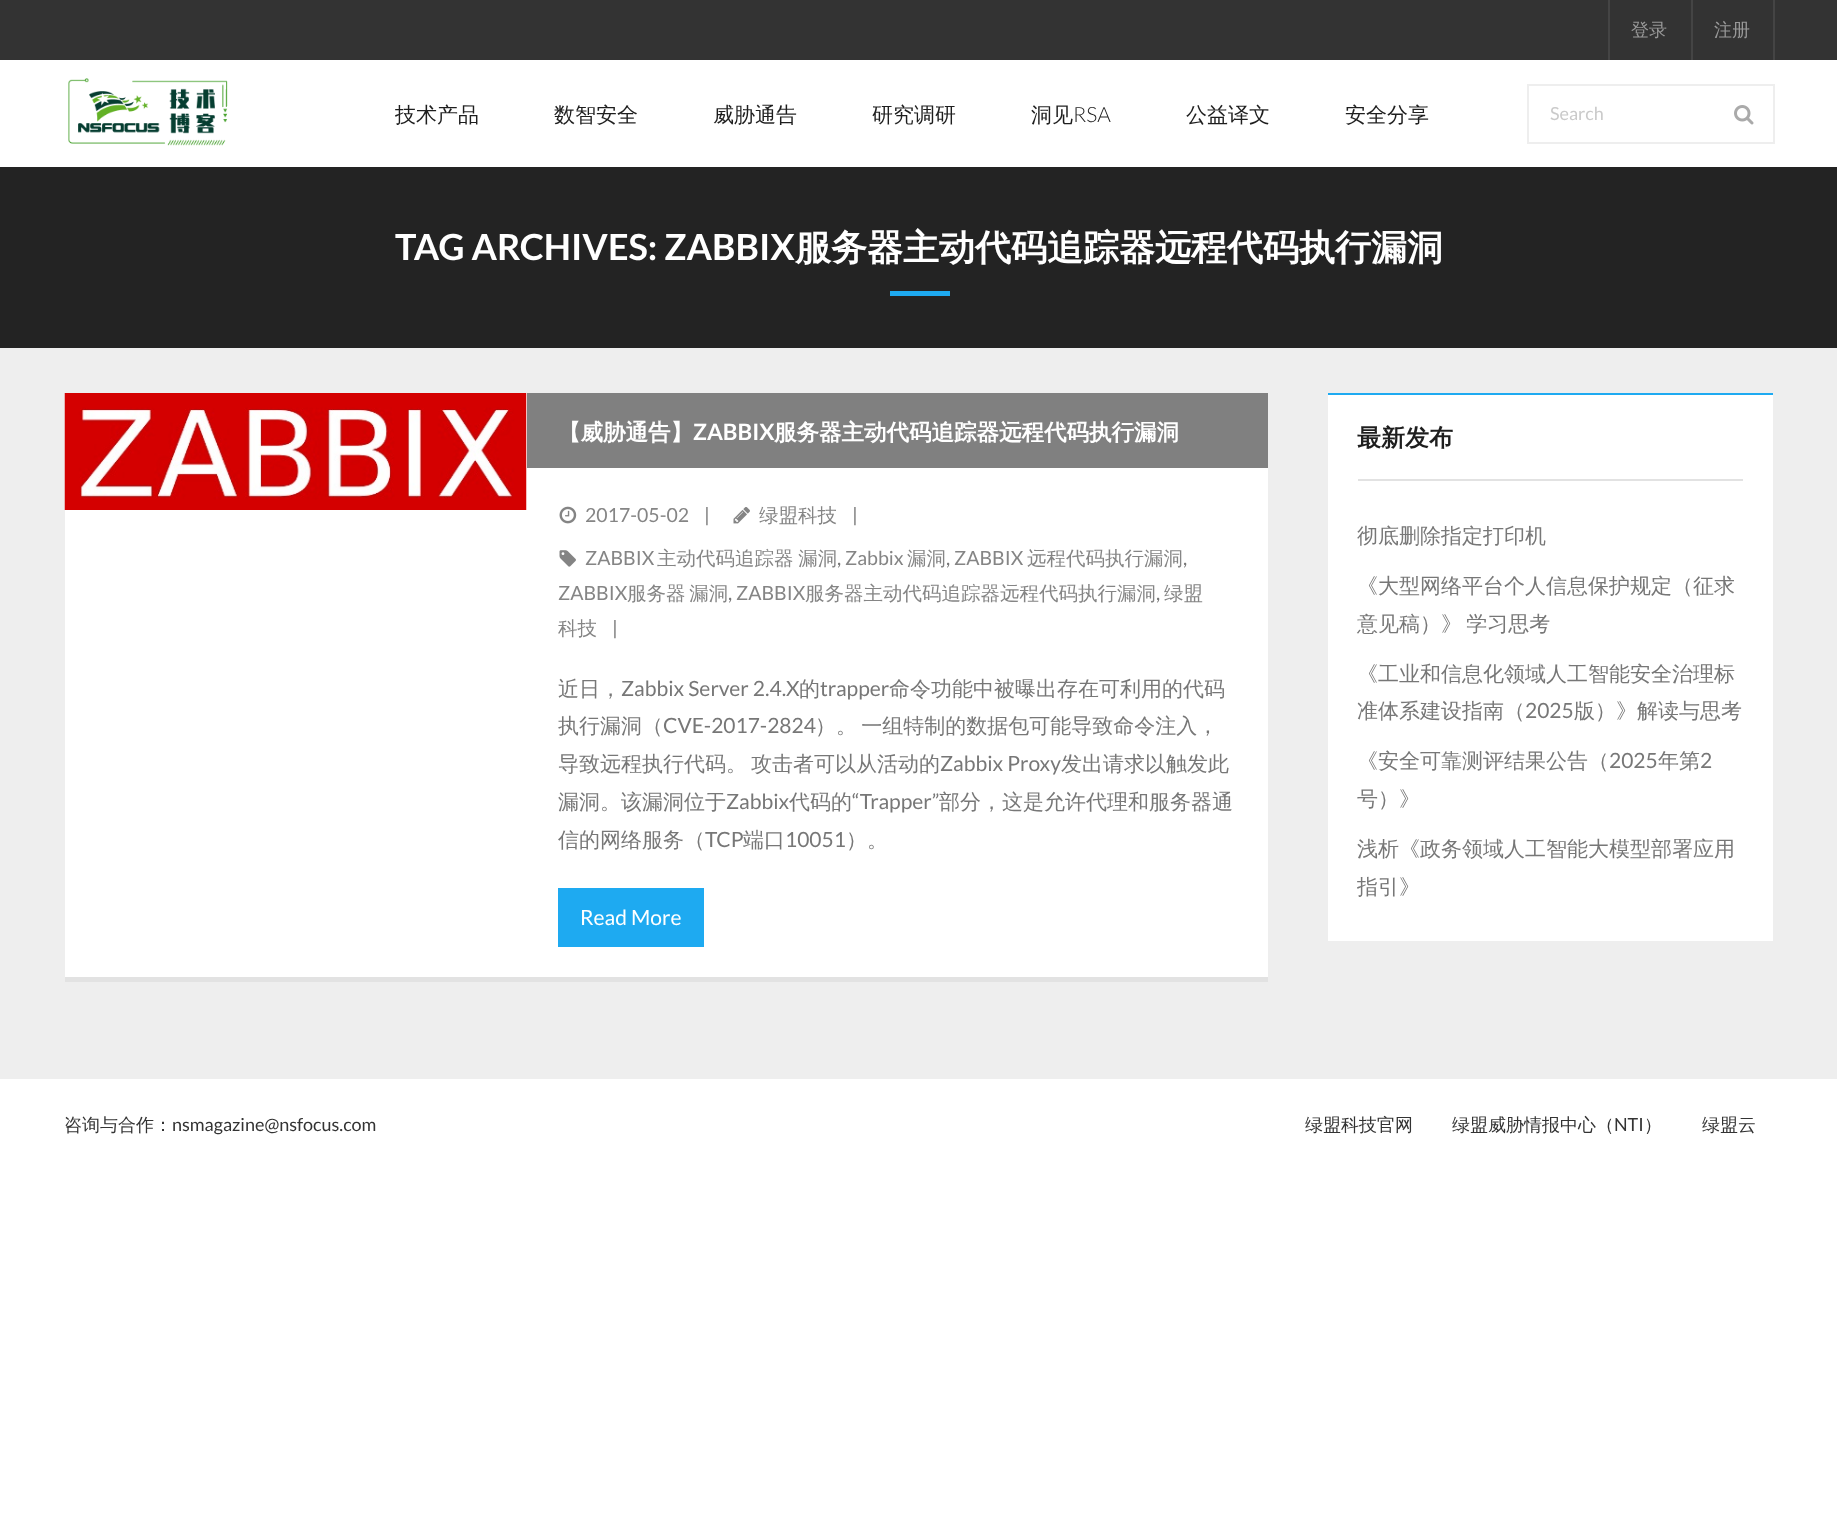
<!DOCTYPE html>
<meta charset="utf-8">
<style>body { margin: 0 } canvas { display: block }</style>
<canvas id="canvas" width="1837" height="1521"></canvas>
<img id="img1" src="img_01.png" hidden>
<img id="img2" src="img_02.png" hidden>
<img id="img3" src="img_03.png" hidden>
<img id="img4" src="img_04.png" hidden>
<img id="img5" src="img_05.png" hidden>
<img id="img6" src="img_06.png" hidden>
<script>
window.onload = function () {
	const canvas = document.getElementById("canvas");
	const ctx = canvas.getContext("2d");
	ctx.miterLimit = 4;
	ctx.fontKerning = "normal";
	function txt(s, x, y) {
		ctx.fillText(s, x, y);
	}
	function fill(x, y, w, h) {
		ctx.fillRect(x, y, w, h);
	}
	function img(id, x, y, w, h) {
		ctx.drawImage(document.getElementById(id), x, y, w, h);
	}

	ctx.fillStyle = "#FFFFFF";
	fill(0, 0, 1837, 1521);
	ctx.fillStyle = "#EEEEEE";
	fill(0, 348, 1837, 731);
	ctx.fillStyle = "#333333";
	fill(0, 0, 1837, 60);
	ctx.fillStyle = "#444444";
	fill(1608, 0, 2, 60);
	fill(1773, 0, 2, 60);
	fill(1691, 0, 2, 60);
	img("img1", 68, 78, 160, 68);
	ctx.strokeStyle = "#EEEEEE";
	ctx.lineWidth = 2;
	ctx.strokeRect(1528, 85, 246, 58);
	img("img2", 1734, 105, 20, 20);
	ctx.fillStyle = "#232323";
	fill(0, 167, 1837, 181);
	ctx.fillStyle = "#1EAAF1";
	fill(890, 291, 60, 5);
	ctx.fillStyle = "#FFFFFF";
	fill(65, 468, 1203, 509);
	ctx.fillStyle = "#E2E2E2";
	fill(65, 977, 1203, 5);
	ctx.fillStyle = "#FFFFFF";
	fill(526, 393, 1, 75);
	img("img3", 64, 393, 463, 117);
	ctx.fillStyle = "#808080";
	fill(527, 393, 741, 75);
	img("img4", 559, 506, 18, 18);
	img("img5", 733, 507, 17, 17);
	img("img6", 559, 550, 17, 17);
	ctx.fillStyle = "#1EAAF1";
	fill(558, 888, 146, 59);
	ctx.fillStyle = "#FFFFFF";
	fill(1328, 395, 445, 546);
	ctx.fillStyle = "#1EAAF1";
	fill(1328, 393, 445, 2);
	ctx.fillStyle = "#E2E2E2";
	fill(1358, 479, 385, 2);
	ctx.font = "500 18px WenQuanYi Zen Hei";
	ctx.fillStyle = "#999999";
	txt("登录", 1631, 36);
	txt("注册", 1714, 36);
	ctx.font = "500 21px WenQuanYi Zen Hei";
	ctx.fillStyle = "#1E1E1E";
	txt("技术产品", 395, 122);
	txt("数智安全", 554, 122);
	txt("威胁通告", 713, 122);
	txt("研究调研", 872, 122);
	txt("洞见", 1031, 122);
	ctx.font = "300 21px Lato";
	txt("RSA", 1073, 122);
	ctx.font = "500 21px WenQuanYi Zen Hei";
	txt("公益译文", 1186, 122);
	txt("安全分享", 1345, 122);
	ctx.font = "18px Lato";
	ctx.fillStyle = "#CACACA";
	txt("Search", 1550, 120);
	ctx.font = "bold 36px Lato";
	ctx.fillStyle = "#FFFFFF";
	txt("TAG ARCHIVES: ZABBIX", 395, 260);
	ctx.font = "bold 36px WenQuanYi Zen Hei";
	txt("服务器主动代码追踪器远程代码执行漏洞", 795, 260);
	ctx.font = "bold 22.5px WenQuanYi Zen Hei";
	txt("【威胁通告】", 558, 440);
	ctx.font = "bold 22.5px Lato";
	txt("ZABBIX", 693, 440);
	ctx.font = "bold 22.5px WenQuanYi Zen Hei";
	txt("服务器主动代码追踪器远程代码执行漏洞", 774, 440);
	ctx.font = "19.5px Lato";
	ctx.fillStyle = "#858585";
	txt("2017-05-02", 585, 522);
	ctx.fillStyle = "#777777";
	txt("|", 704, 522);
	ctx.font = "500 19.5px WenQuanYi Zen Hei";
	ctx.fillStyle = "#858585";
	txt("绿盟科技", 759, 522);
	ctx.font = "19.5px Lato";
	ctx.fillStyle = "#777777";
	txt("|", 852, 522);
	ctx.fillStyle = "#858585";
	txt("ZABBIX", 585, 565);
	ctx.wordSpacing = "-1px";
	ctx.font = "500 19.5px WenQuanYi Zen Hei";
	txt("主动代码追踪器 漏洞", 657, 565);
	ctx.wordSpacing = "0px";
	ctx.font = "19.5px Lato";
	ctx.fillStyle = "#777777";
	txt(",", 837, 565);
	ctx.fillStyle = "#858585";
	txt("Zabbix", 845, 565);
	ctx.font = "500 19.5px WenQuanYi Zen Hei";
	txt("漏洞", 907, 565);
	ctx.font = "19.5px Lato";
	ctx.fillStyle = "#777777";
	txt(",", 946, 565);
	ctx.fillStyle = "#858585";
	txt("ZABBIX", 954, 565);
	ctx.font = "500 19.5px WenQuanYi Zen Hei";
	txt("远程代码执行漏洞", 1027, 565);
	ctx.font = "19.5px Lato";
	ctx.fillStyle = "#777777";
	txt(",", 1183, 565);
	ctx.fillStyle = "#858585";
	txt("ZABBIX", 558, 600);
	ctx.wordSpacing = "-2px";
	ctx.font = "500 19.5px WenQuanYi Zen Hei";
	txt("服务器 漏洞", 627, 600);
	ctx.wordSpacing = "0px";
	ctx.font = "19.5px Lato";
	ctx.fillStyle = "#777777";
	txt(",", 728, 600);
	ctx.fillStyle = "#858585";
	txt("ZABBIX", 736, 600);
	ctx.font = "500 19.5px WenQuanYi Zen Hei";
	txt("服务器主动代码追踪器远程代码执行漏洞", 805, 600);
	ctx.font = "19.5px Lato";
	ctx.fillStyle = "#777777";
	txt(",", 1156, 600);
	ctx.font = "500 19.5px WenQuanYi Zen Hei";
	ctx.fillStyle = "#858585";
	txt("绿盟", 1164, 600);
	txt("科技", 558, 635);
	ctx.font = "19.5px Lato";
	ctx.fillStyle = "#777777";
	txt("|", 612, 635);
	ctx.font = "500 21px WenQuanYi Zen Hei";
	txt("近日，", 558, 696);
	ctx.font = "21px Lato";
	txt("Zabbix Server 2.4.X", 621, 696);
	ctx.font = "500 21px WenQuanYi Zen Hei";
	txt("的", 799, 696);
	ctx.font = "21px Lato";
	txt("trapper", 820, 696);
	ctx.font = "500 21px WenQuanYi Zen Hei";
	txt("命令功能中被曝出存在可利用的代码", 889, 696);
	txt("执行漏洞（", 558, 733);
	ctx.font = "21px Lato";
	txt("CVE-2017-2824", 663, 733);
	ctx.wordSpacing = "-2px";
	ctx.font = "500 21px WenQuanYi Zen Hei";
	txt("）。 一组特制的数据包可能导致命令注入，", 815, 733);
	ctx.wordSpacing = "0px";
	txt("导致远程执行代码。", 558, 771);
	txt("攻击者可以从活动的", 751, 771);
	ctx.font = "21px Lato";
	txt("Zabbix Proxy", 940, 771);
	ctx.font = "500 21px WenQuanYi Zen Hei";
	txt("发出请求以触发此", 1061, 771);
	txt("漏洞。该漏洞位于", 558, 809);
	ctx.font = "21px Lato";
	txt("Zabbix", 726, 809);
	ctx.font = "500 21px WenQuanYi Zen Hei";
	txt("代码的", 789, 809);
	ctx.font = "21px Lato";
	txt("“Trapper”", 852, 809);
	ctx.font = "500 21px WenQuanYi Zen Hei";
	txt("部分，这是允许代理和服务器通", 939, 809);
	txt("信的网络服务（", 558, 847);
	ctx.font = "21px Lato";
	txt("TCP", 705, 847);
	ctx.font = "500 21px WenQuanYi Zen Hei";
	txt("端口", 743, 847);
	ctx.font = "21px Lato";
	txt("10051", 785, 847);
	ctx.font = "500 21px WenQuanYi Zen Hei";
	txt("）。", 846, 847);
	ctx.font = "21px Lato";
	ctx.fillStyle = "#FFFFFF";
	txt("Read More", 580, 925);
	ctx.font = "bold 24px WenQuanYi Zen Hei";
	ctx.fillStyle = "#1E1E1E";
	txt("最新发布", 1357, 446);
	ctx.font = "500 21px WenQuanYi Zen Hei";
	ctx.fillStyle = "#777777";
	txt("彻底删除指定打印机", 1357, 543);
	txt("《大型网络平台个人信息保护规定（征求", 1357, 593);
	ctx.wordSpacing = "-2px";
	txt("意见稿）》 学习思考", 1357, 631);
	ctx.wordSpacing = "0px";
	txt("《工业和信息化领域人工智能安全治理标", 1357, 681);
	txt("准体系建设指南（", 1357, 718);
	ctx.font = "21px Lato";
	txt("2025", 1525, 718);
	ctx.font = "500 21px WenQuanYi Zen Hei";
	txt("版）》解读与思考", 1574, 718);
	txt("《安全可靠测评结果公告（", 1357, 768);
	ctx.font = "21px Lato";
	txt("2025", 1609, 768);
	ctx.font = "500 21px WenQuanYi Zen Hei";
	txt("年第", 1658, 768);
	ctx.font = "21px Lato";
	txt("2", 1700, 768);
	ctx.font = "500 21px WenQuanYi Zen Hei";
	txt("号）》", 1357, 806);
	txt("浅析《政务领域人工智能大模型部署应用", 1357, 856);
	txt("指引》", 1357, 894);
	ctx.font = "500 18px WenQuanYi Zen Hei";
	ctx.fillStyle = "#333333";
	txt("咨询与合作：", 64, 1131);
	ctx.font = "18px Lato";
	txt("nsmagazine@nsfocus.com", 172, 1131);
	ctx.font = "500 18px WenQuanYi Zen Hei";
	txt("绿盟科技官网", 1305, 1131);
	txt("绿盟威胁情报中心（", 1452, 1131);
	ctx.font = "18px Lato";
	txt("NTI", 1614, 1131);
	ctx.font = "500 18px WenQuanYi Zen Hei";
	txt("）", 1644, 1131);
	txt("绿盟云", 1702, 1131);
};
</script>
